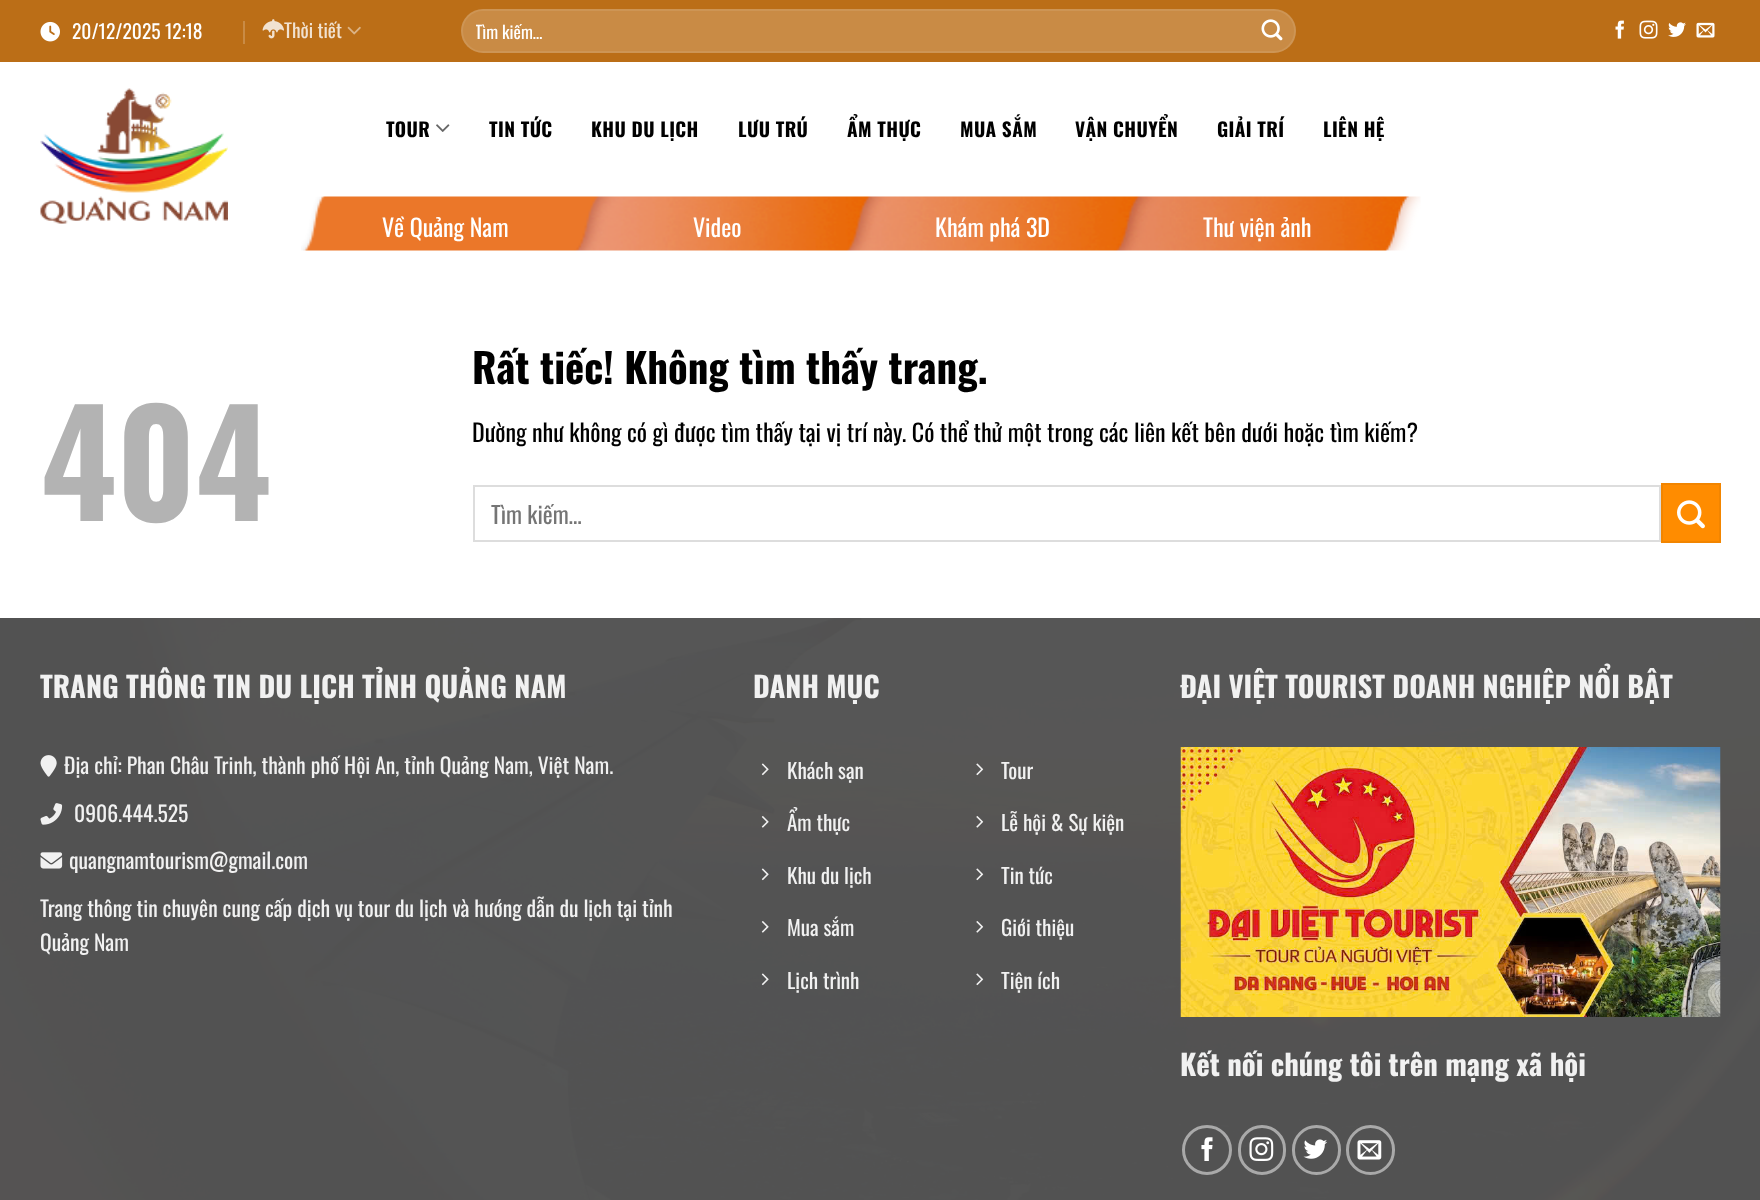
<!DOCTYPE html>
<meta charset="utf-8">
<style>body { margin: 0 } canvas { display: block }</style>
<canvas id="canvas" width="1760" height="1200"></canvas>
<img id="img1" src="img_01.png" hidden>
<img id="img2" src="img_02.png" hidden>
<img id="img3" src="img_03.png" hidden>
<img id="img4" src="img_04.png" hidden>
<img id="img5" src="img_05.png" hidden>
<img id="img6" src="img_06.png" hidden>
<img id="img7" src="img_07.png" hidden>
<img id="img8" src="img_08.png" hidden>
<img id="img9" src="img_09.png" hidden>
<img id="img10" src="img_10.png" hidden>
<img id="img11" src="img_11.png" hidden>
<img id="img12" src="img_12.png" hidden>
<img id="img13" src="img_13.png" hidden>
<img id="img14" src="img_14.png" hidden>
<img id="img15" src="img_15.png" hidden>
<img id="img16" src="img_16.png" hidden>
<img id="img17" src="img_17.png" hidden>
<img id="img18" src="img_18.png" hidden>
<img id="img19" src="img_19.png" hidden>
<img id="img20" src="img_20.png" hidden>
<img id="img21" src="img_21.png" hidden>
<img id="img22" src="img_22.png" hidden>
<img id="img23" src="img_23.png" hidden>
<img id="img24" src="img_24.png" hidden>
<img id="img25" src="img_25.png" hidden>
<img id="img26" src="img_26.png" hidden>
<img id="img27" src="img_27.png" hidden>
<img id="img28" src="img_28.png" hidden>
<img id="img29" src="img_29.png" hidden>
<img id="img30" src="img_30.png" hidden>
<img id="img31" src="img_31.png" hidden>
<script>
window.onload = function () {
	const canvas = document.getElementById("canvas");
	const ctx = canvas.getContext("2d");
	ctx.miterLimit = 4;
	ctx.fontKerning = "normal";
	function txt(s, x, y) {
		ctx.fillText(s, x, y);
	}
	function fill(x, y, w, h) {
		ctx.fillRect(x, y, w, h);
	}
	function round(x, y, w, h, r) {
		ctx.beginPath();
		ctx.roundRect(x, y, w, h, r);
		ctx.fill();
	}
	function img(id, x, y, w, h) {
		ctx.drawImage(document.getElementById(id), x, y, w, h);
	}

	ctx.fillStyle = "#FFFFFF";
	fill(0, 0, 1760, 1200);
	ctx.fillStyle = "#BB6E17";
	fill(0, 0, 1760, 62);
	img("img1", 40, 21, 20, 21);
	ctx.fillStyle = "#C98B45";
	fill(243, 21, 2, 23);
	img("img2", 262, 19, 22, 20);
	img("img3", 347, 26, 14, 9);
	round(461, 9, 835, 44, 22);
	ctx.beginPath();
	ctx.roundRect(462, 10, 833, 42, 21);
	ctx.strokeStyle = "rgba(255, 255, 255, 0.09)";
	ctx.lineWidth = 2;
	ctx.stroke();
	img("img4", 1261, 19, 22, 22);
	img("img5", 1615, 20, 9, 19);
	img("img6", 1639, 20, 19, 19);
	img("img7", 1668, 22, 18, 15);
	img("img8", 1696, 22, 19, 16);
	img("img9", 40, 88, 188, 136);
	img("img10", 436, 124, 14, 8);
	img("img11", 301, 196, 1120, 55);
	ctx.strokeStyle = "#DDDDDD";
	ctx.strokeRect(474, 486, 1186, 55);
	ctx.fillStyle = "#FF8C00";
	ctx.beginPath();
	ctx.rect(1662, 484, 58, 58);
	ctx.fill();
	ctx.strokeStyle = "#F28500";
	ctx.stroke();
	img("img12", 1677, 500, 28, 29);
	img("img13", 0, 618, 1760, 582);
	img("img14", 40, 755, 17, 22);
	img("img15", 40, 803, 23, 22);
	img("img16", 40, 852, 23, 17);
	img("img17", 761, 763, 8, 13);
	img("img18", 761, 816, 8, 12);
	img("img19", 761, 868, 8, 13);
	img("img20", 761, 921, 8, 12);
	img("img21", 761, 973, 8, 13);
	img("img22", 976, 763, 8, 13);
	img("img23", 976, 816, 8, 12);
	img("img24", 976, 868, 8, 13);
	img("img25", 976, 921, 8, 12);
	img("img26", 976, 973, 8, 13);
	img("img27", 1180, 747, 541, 270);
	ctx.beginPath();
	ctx.arc(1207, 1150, 23.5, 0, Math.PI * 2);
	ctx.strokeStyle = "#A9A9A9";
	ctx.lineWidth = 3;
	ctx.stroke();
	img("img28", 1201, 1137, 12, 24);
	ctx.beginPath();
	ctx.roundRect(1239.5, 1126.5, 45, 47, 22.5);
	ctx.stroke();
	img("img29", 1249, 1137, 25, 24);
	ctx.beginPath();
	ctx.roundRect(1293.5, 1126.5, 46, 47, 23);
	ctx.stroke();
	img("img30", 1303, 1139, 25, 20);
	ctx.beginPath();
	ctx.roundRect(1347.5, 1126.5, 46, 47, 23);
	ctx.stroke();
	img("img31", 1357, 1140, 25, 20);
	ctx.font = "19.5px Oswald";
	ctx.fillStyle = "#FFFFFF";
	txt("20/12/2025 12:18", 72, 39);
	ctx.font = "19.25px Oswald";
	ctx.fillStyle = "#F1E2D1";
	txt("Thời tiết", 284, 38);
	ctx.save();
	ctx.beginPath();
	ctx.rect(476, 18, 799, 26);
	ctx.clip();
	ctx.font = "17.5px Oswald";
	ctx.fillStyle = "#FFFFFF";
	txt("Tìm kiếm…", 475, 39);
	ctx.restore();
	ctx.letterSpacing = "0.4px";
	ctx.font = "bold 19.25px Oswald";
	ctx.fillStyle = "#000000";
	txt("TOUR", 386, 137);
	txt("TIN TỨC", 489, 137);
	txt("KHU DU LỊCH", 591, 137);
	txt("LƯU TRÚ", 738, 137);
	txt("ẨM THỰC", 847, 137);
	txt("MUA SẮM", 960, 137);
	txt("VẬN CHUYỂN", 1075, 137);
	txt("GIẢI TRÍ", 1217, 137);
	txt("LIÊN HỆ", 1323, 137);
	ctx.letterSpacing = "0px";
	ctx.font = "24px Oswald";
	ctx.fillStyle = "#FFFFFF";
	txt("Về Quảng Nam", 382, 237);
	txt("Video", 693, 237);
	txt("Khám phá 3D", 935, 237);
	txt("Thư viện ảnh", 1203, 237);
	ctx.font = "bold 144px Oswald";
	ctx.fillStyle = "#B3B3B3";
	txt("404", 41, 521);
	ctx.font = "bold 40.75px Oswald";
	ctx.fillStyle = "#000000";
	txt("Rất tiếc! Không tìm thấy trang.", 472, 384);
	ctx.font = "24px Oswald";
	txt("Dường như không có gì được tìm thấy tại vị trí này. Có thể thử một trong các liên kết bên dưới hoặc tìm kiếm?", 472, 442);
	ctx.font = "23.5px Oswald";
	ctx.fillStyle = "#757575";
	txt("Tìm kiếm…", 491, 524);
	ctx.font = "bold 28.75px Oswald";
	ctx.fillStyle = "#F1F1F1";
	txt("TRANG THÔNG TIN DU LỊCH TỈNH QUẢNG NAM", 40, 698);
	ctx.font = "21.6px Oswald";
	txt("Địa chỉ: Phan Châu Trinh, thành phố Hội An, tỉnh Quảng Nam, Việt Nam.", 64, 774);
	txt("0906.444.525", 74, 822);
	txt("quangnamtourism@gmail.com", 69, 869);
	txt("Trang thông tin chuyên cung cấp dịch vụ tour du lịch và hướng dẫn du lịch tại tỉnh", 40, 917);
	txt("Quảng Nam", 40, 951);
	ctx.font = "bold 28.75px Oswald";
	txt("DANH MỤC", 753, 698);
	ctx.font = "21px Oswald";
	txt("Khách sạn", 787, 779);
	txt("Ẩm thực", 787, 831);
	txt("Khu du lịch", 787, 884);
	txt("Mua sắm", 787, 936);
	txt("Lịch trình", 787, 989);
	txt("Tour", 1001, 779);
	txt("Lễ hội & Sự kiện", 1001, 831);
	txt("Tin tức", 1001, 884);
	txt("Giới thiệu", 1001, 936);
	txt("Tiện ích", 1001, 989);
	ctx.font = "bold 28.75px Oswald";
	txt("ĐẠI VIỆT TOURIST DOANH NGHIỆP NỔI BẬT", 1180, 698);
	txt("Kết nối chúng tôi trên mạng xã hội", 1180, 1076);
};
</script>
